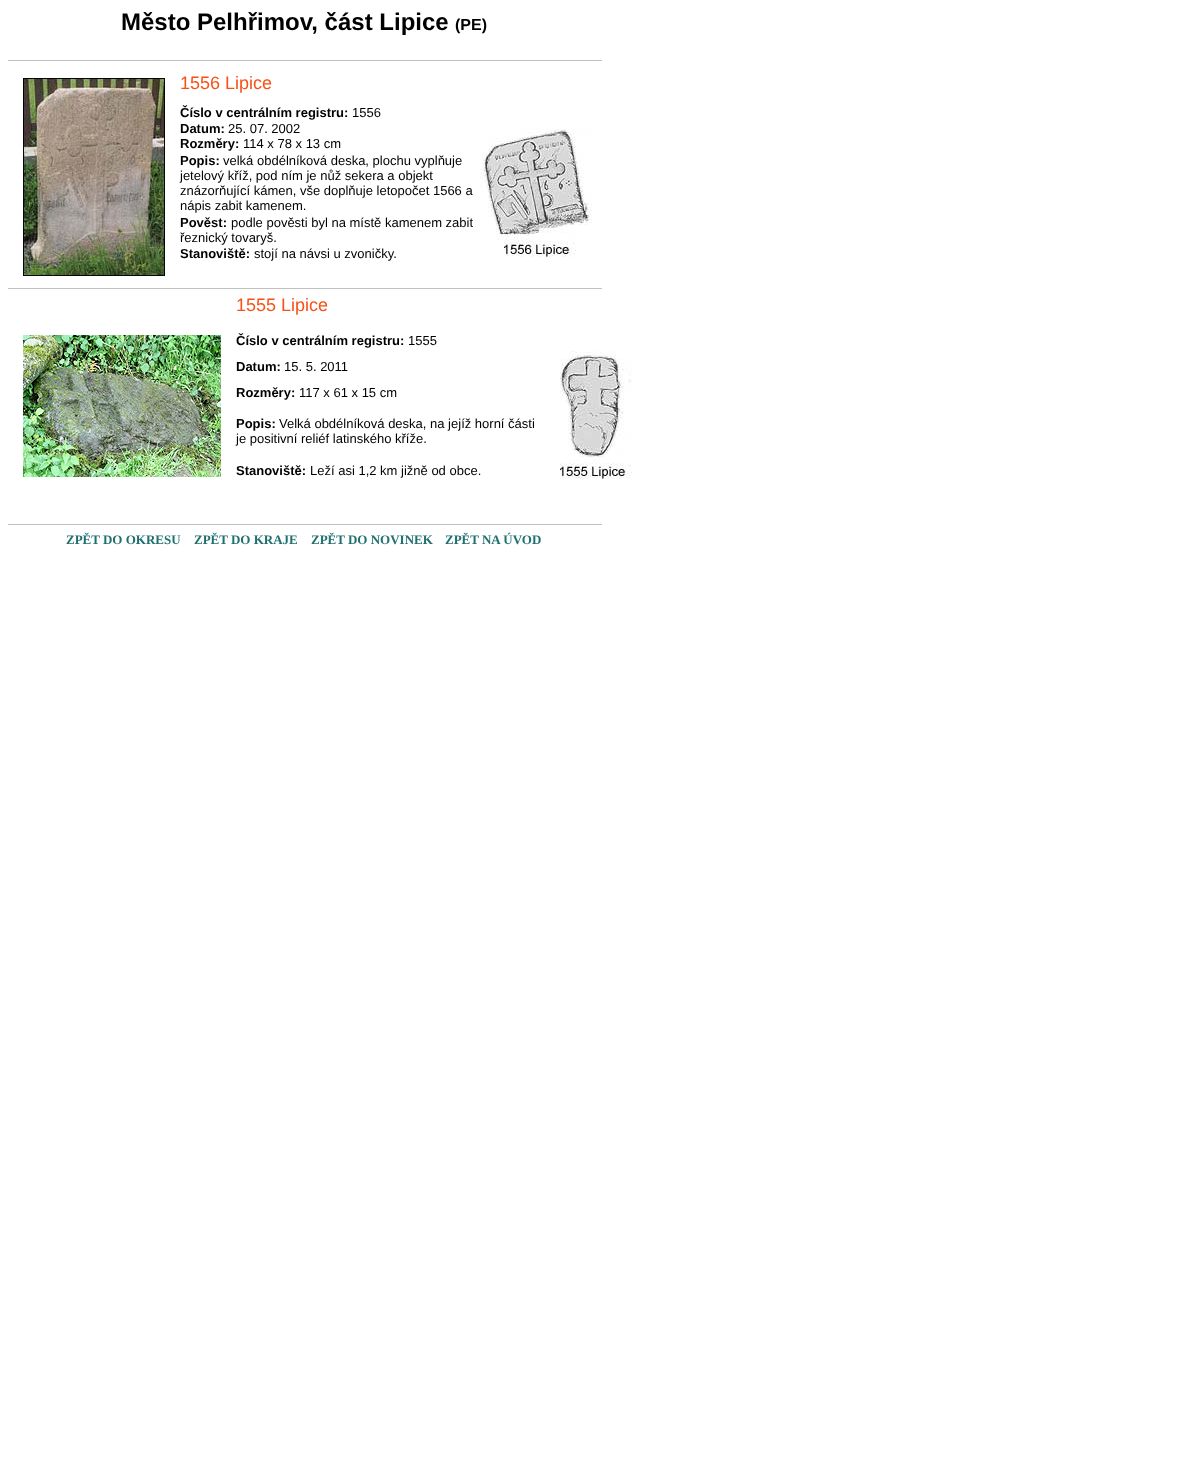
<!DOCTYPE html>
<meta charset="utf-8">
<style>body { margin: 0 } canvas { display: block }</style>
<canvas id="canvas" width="1191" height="1460"></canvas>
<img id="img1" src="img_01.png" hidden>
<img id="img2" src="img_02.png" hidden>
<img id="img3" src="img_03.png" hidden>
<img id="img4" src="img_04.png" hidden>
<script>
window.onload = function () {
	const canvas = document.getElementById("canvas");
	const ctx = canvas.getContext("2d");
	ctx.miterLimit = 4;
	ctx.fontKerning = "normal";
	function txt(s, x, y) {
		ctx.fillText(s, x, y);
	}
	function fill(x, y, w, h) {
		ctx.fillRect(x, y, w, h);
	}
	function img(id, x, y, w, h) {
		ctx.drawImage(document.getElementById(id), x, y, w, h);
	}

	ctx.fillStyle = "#FFFFFF";
	fill(0, 0, 1191, 1460);
	ctx.fillStyle = "#C0C0C0";
	fill(8, 60, 594, 1);
	img("img1", 480, 129, 112, 128);
	fill(8, 288, 594, 1);
	img("img2", 560, 351, 72, 128);
	fill(8, 524, 594, 1);
	img("img3", 23, 335, 198, 142);
	img("img4", 23, 78, 142, 198);
	ctx.font = "bold 24px Liberation Sans";
	ctx.fillStyle = "#000000";
	txt("Město Pelhřimov, část Lipice", 121, 30);
	ctx.font = "bold 16px Liberation Sans";
	txt("(PE)", 455, 30);
	ctx.font = "18px Liberation Sans";
	ctx.fillStyle = "#F85015";
	txt("1556 Lipice", 180, 89);
	ctx.font = "bold 13px Liberation Sans";
	ctx.fillStyle = "#000000";
	txt("Číslo v centrálním registru:", 180, 117);
	ctx.font = "13px Liberation Sans";
	txt("1556", 352, 117);
	ctx.font = "bold 13px Liberation Sans";
	txt("Datum:", 180, 133);
	ctx.font = "13px Liberation Sans";
	txt("25. 07. 2002", 228, 133);
	ctx.font = "bold 13px Liberation Sans";
	txt("Rozměry:", 180, 148);
	ctx.font = "13px Liberation Sans";
	txt("114 x 78 x 13 cm", 243, 148);
	ctx.font = "bold 13px Liberation Sans";
	txt("Popis:", 180, 165);
	ctx.font = "13px Liberation Sans";
	txt("velká obdélníková deska, plochu vyplňuje", 223, 165);
	txt("jetelový kříž, pod ním je nůž sekera a objekt", 180, 180);
	txt("znázorňující kámen, vše doplňuje letopočet 1566 a", 180, 195);
	txt("nápis zabit kamenem.", 180, 210);
	ctx.font = "bold 13px Liberation Sans";
	txt("Pověst:", 180, 227);
	ctx.font = "13px Liberation Sans";
	txt("podle pověsti byl na místě kamenem zabit", 231, 227);
	txt("řeznický tovaryš.", 180, 242);
	ctx.font = "bold 13px Liberation Sans";
	txt("Stanoviště:", 180, 258);
	ctx.font = "13px Liberation Sans";
	txt("stojí na návsi u zvoničky.", 254, 258);
	ctx.font = "18px Liberation Sans";
	ctx.fillStyle = "#F85015";
	txt("1555 Lipice", 236, 311);
	ctx.font = "bold 13px Liberation Sans";
	ctx.fillStyle = "#000000";
	txt("Číslo v centrálním registru:", 236, 345);
	ctx.font = "13px Liberation Sans";
	txt("1555", 408, 345);
	ctx.font = "bold 13px Liberation Sans";
	txt("Datum:", 236, 371);
	ctx.font = "13px Liberation Sans";
	txt("15. 5. 2011", 284, 371);
	ctx.font = "bold 13px Liberation Sans";
	txt("Rozměry:", 236, 397);
	ctx.font = "13px Liberation Sans";
	txt("117 x 61 x 15 cm", 299, 397);
	ctx.font = "bold 13px Liberation Sans";
	txt("Popis:", 236, 428);
	ctx.font = "13px Liberation Sans";
	txt("Velká obdélníková deska, na jejíž horní části", 279, 428);
	txt("je positivní reliéf latinského kříže.", 236, 443);
	ctx.font = "bold 13px Liberation Sans";
	txt("Stanoviště:", 236, 475);
	ctx.font = "13px Liberation Sans";
	txt("Leží asi 1,2 km jižně od obce.", 310, 475);
	ctx.font = "bold 13px Liberation Serif";
	ctx.fillStyle = "#207070";
	txt("ZPĚT DO OKRESU", 66, 544);
	txt("ZPĚT DO KRAJE", 194, 544);
	txt("ZPĚT DO NOVINEK", 311, 544);
	txt("ZPĚT NA ÚVOD", 445, 544);
};
</script>
